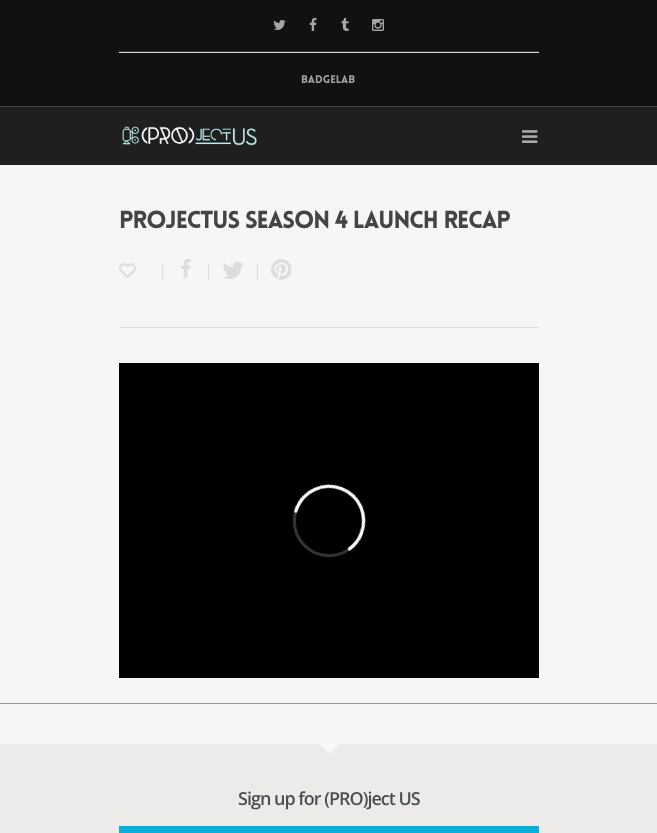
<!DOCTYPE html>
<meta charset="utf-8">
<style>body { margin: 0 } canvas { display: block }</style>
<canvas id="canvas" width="657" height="833"></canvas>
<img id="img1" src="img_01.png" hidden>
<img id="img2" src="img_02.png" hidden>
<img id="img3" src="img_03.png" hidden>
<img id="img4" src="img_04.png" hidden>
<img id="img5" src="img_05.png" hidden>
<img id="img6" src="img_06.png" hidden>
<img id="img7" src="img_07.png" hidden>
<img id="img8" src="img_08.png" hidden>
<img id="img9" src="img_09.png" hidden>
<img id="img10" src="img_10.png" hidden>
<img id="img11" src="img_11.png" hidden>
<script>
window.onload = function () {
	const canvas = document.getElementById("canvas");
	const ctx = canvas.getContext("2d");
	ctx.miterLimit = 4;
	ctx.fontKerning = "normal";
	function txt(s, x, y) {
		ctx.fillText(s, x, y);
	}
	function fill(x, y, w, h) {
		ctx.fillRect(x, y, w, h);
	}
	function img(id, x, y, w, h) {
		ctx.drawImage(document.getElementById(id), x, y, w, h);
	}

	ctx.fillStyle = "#F6F6F6";
	fill(0, 0, 657, 833);
	ctx.fillStyle = "#111111";
	fill(0, 0, 657, 106);
	ctx.fillStyle = "#444444";
	fill(0, 106, 657, 1);
	ctx.fillStyle = "#333333";
	fill(119, 51, 420, 1);
	img("img1", 273, 20, 13, 10);
	img("img2", 309, 18, 8, 13);
	img("img3", 341, 18, 8, 13);
	img("img4", 372, 19, 12, 12);
	ctx.fillStyle = "#DDDDDD";
	fill(119, 52, 420, 1);
	ctx.fillStyle = "#1F1F1F";
	fill(0, 107, 657, 58);
	img("img5", 122, 126, 135, 20);
	img("img6", 522, 130, 16, 13);
	ctx.fillStyle = "#DDDDDD";
	fill(119, 327, 420, 1);
	fill(162, 264, 1, 16);
	img("img7", 119, 263, 17, 15);
	fill(208, 264, 1, 16);
	img("img8", 181, 259, 10, 19);
	fill(257, 264, 1, 16);
	img("img9", 223, 262, 21, 17);
	img("img10", 271, 259, 21, 21);
	img("img11", 119, 363, 420, 315);
	ctx.fillStyle = "#999999";
	fill(0, 703, 657, 1);
	ctx.fillStyle = "#ECEBE9";
	fill(0, 744, 657, 89);
	ctx.fillStyle = "#F8F8F8";
	ctx.beginPath();
	ctx.moveTo(319, 744);
	ctx.lineTo(339, 744);
	ctx.lineTo(329, 754);
	ctx.closePath();
	ctx.fill();
	ctx.fillStyle = "#09AFD6";
	fill(119, 826, 420, 7);
	ctx.font = "900 11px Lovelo";
	ctx.fillStyle = "#A0A0A0";
	txt("BadgeLab", 301, 83);
	ctx.letterSpacing = "-1px";
	ctx.font = "900 24px Lovelo";
	ctx.fillStyle = "#444444";
	txt("PROjectUS Season 4 Launch Recap", 119, 228);
	ctx.font = "600 18px Open Sans";
	ctx.fillStyle = "#4B4F52";
	txt("Sign up for (PRO)ject US", 238, 805);
};
</script>
